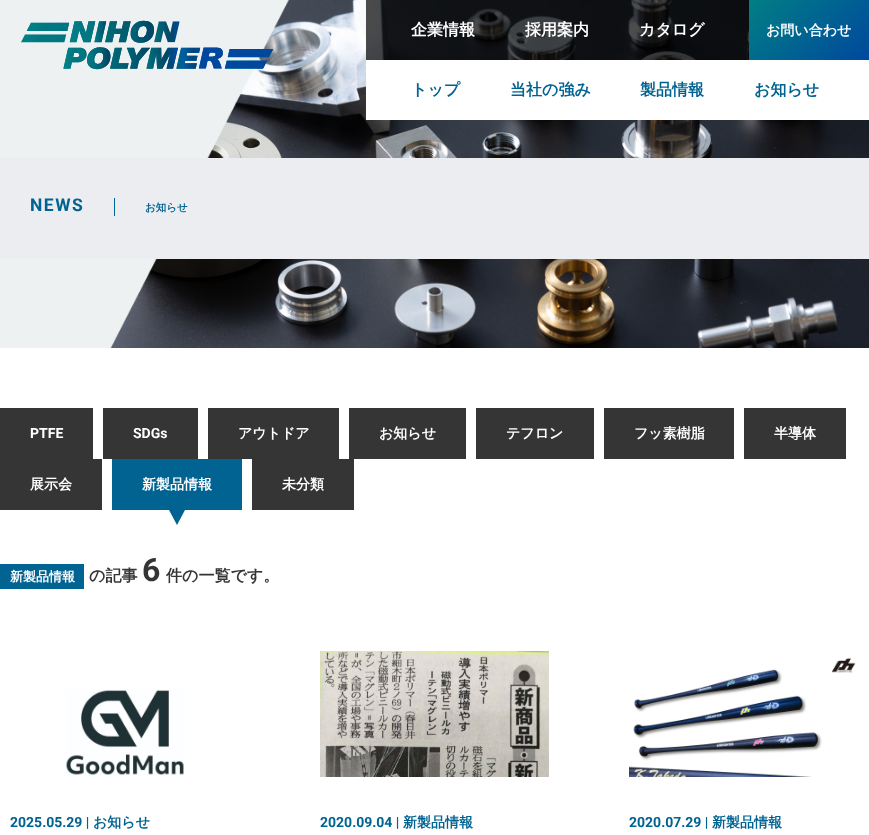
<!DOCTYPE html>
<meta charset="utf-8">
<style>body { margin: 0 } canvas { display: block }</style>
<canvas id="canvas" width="869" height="835"></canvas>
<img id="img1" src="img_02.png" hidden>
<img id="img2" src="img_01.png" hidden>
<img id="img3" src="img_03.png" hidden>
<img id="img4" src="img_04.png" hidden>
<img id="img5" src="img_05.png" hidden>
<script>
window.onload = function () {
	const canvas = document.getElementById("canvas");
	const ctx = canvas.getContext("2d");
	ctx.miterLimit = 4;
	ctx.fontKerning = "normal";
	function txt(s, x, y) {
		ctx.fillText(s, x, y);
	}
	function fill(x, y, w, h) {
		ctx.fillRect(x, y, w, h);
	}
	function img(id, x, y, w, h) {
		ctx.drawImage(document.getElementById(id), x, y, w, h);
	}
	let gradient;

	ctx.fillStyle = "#FFFFFF";
	fill(0, 0, 869, 835);
	img("img1", 0, 0, 869, 348);
	img("img2", 21, 20, 253, 50);
	ctx.fillStyle = "rgba(0, 0, 0, 0.7)";
	fill(366, 0, 383, 60);
	gradient = ctx.createLinearGradient(764, -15, 854, 75);
	gradient.addColorStop(0, "#007F85");
	gradient.addColorStop(1, "#00489D");
	ctx.fillStyle = gradient;
	fill(749, 0, 120, 60);
	ctx.fillStyle = "#FFFFFF";
	fill(366, 60, 503, 60);
	ctx.fillStyle = "#ECEDF1";
	fill(0, 158, 869, 101);
	ctx.fillStyle = "#006391";
	fill(114, 198, 1, 18);
	ctx.fillStyle = "#353535";
	fill(0, 408, 93, 51);
	fill(103, 408, 95, 51);
	fill(208, 408, 131, 51);
	fill(349, 408, 117, 51);
	fill(476, 408, 118, 51);
	fill(604, 408, 130, 51);
	fill(744, 408, 102, 51);
	fill(0, 459, 102, 51);
	ctx.fillStyle = "#006391";
	fill(112, 459, 130, 51);
	ctx.beginPath();
	ctx.moveTo(169, 510);
	ctx.lineTo(185, 510);
	ctx.lineTo(177, 525);
	ctx.closePath();
	ctx.fill();
	ctx.fillStyle = "#353535";
	fill(252, 459, 102, 51);
	ctx.fillStyle = "#006391";
	fill(0, 564, 84, 25);
	img("img3", 66, 689, 118, 86);
	img("img4", 320, 651, 229, 126);
	img("img5", 629, 658, 227, 119);
	ctx.font = "bold 16px WenQuanYi Zen Hei";
	ctx.fillStyle = "#FFFFFF";
	txt("企業情報", 411, 35);
	txt("採用案内", 525, 35);
	txt("カタログ", 639, 35);
	ctx.font = "bold 14px WenQuanYi Zen Hei";
	txt("お問い合わせ", 766, 35);
	ctx.font = "bold 16px WenQuanYi Zen Hei";
	ctx.fillStyle = "#006391";
	txt("トップ", 411, 95);
	txt("当社の強み", 510, 95);
	txt("製品情報", 640, 95);
	txt("お知らせ", 754, 95);
	ctx.letterSpacing = "1.5px";
	ctx.font = "bold 17.5px Roboto";
	txt("NEWS", 30, 211);
	ctx.letterSpacing = "0px";
	ctx.font = "bold 10.5px WenQuanYi Zen Hei";
	txt("お知らせ", 145, 211);
	ctx.font = "bold 14px Roboto";
	ctx.fillStyle = "#FFFFFF";
	txt("PTFE", 30, 438);
	txt("SDGs", 133, 438);
	ctx.font = "bold 14px WenQuanYi Zen Hei";
	txt("アウトドア", 238, 438);
	txt("お知らせ", 379, 438);
	txt("テフロン", 506, 438);
	txt("フッ素樹脂", 634, 438);
	txt("半導体", 774, 438);
	txt("展示会", 30, 489);
	txt("新製品情報", 142, 489);
	txt("未分類", 282, 489);
	ctx.font = "bold 13px WenQuanYi Zen Hei";
	txt("新製品情報", 10, 581);
	ctx.font = "bold 16px WenQuanYi Zen Hei";
	ctx.fillStyle = "#353535";
	txt("の記事", 89, 581);
	ctx.font = "bold 32px Roboto";
	txt("6", 142, 581);
	ctx.font = "bold 16px WenQuanYi Zen Hei";
	txt("件の一覧です。", 166, 581);
	ctx.font = "bold 14px Roboto";
	ctx.fillStyle = "#006391";
	txt("2025.05.29 |", 10, 827);
	ctx.font = "bold 14px WenQuanYi Zen Hei";
	txt("お知らせ", 93, 827);
	ctx.font = "bold 14px Roboto";
	txt("2020.09.04 |", 320, 827);
	ctx.font = "bold 14px WenQuanYi Zen Hei";
	txt("新製品情報", 403, 827);
	ctx.font = "bold 14px Roboto";
	txt("2020.07.29 |", 629, 827);
	ctx.font = "bold 14px WenQuanYi Zen Hei";
	txt("新製品情報", 712, 827);
};
</script>
